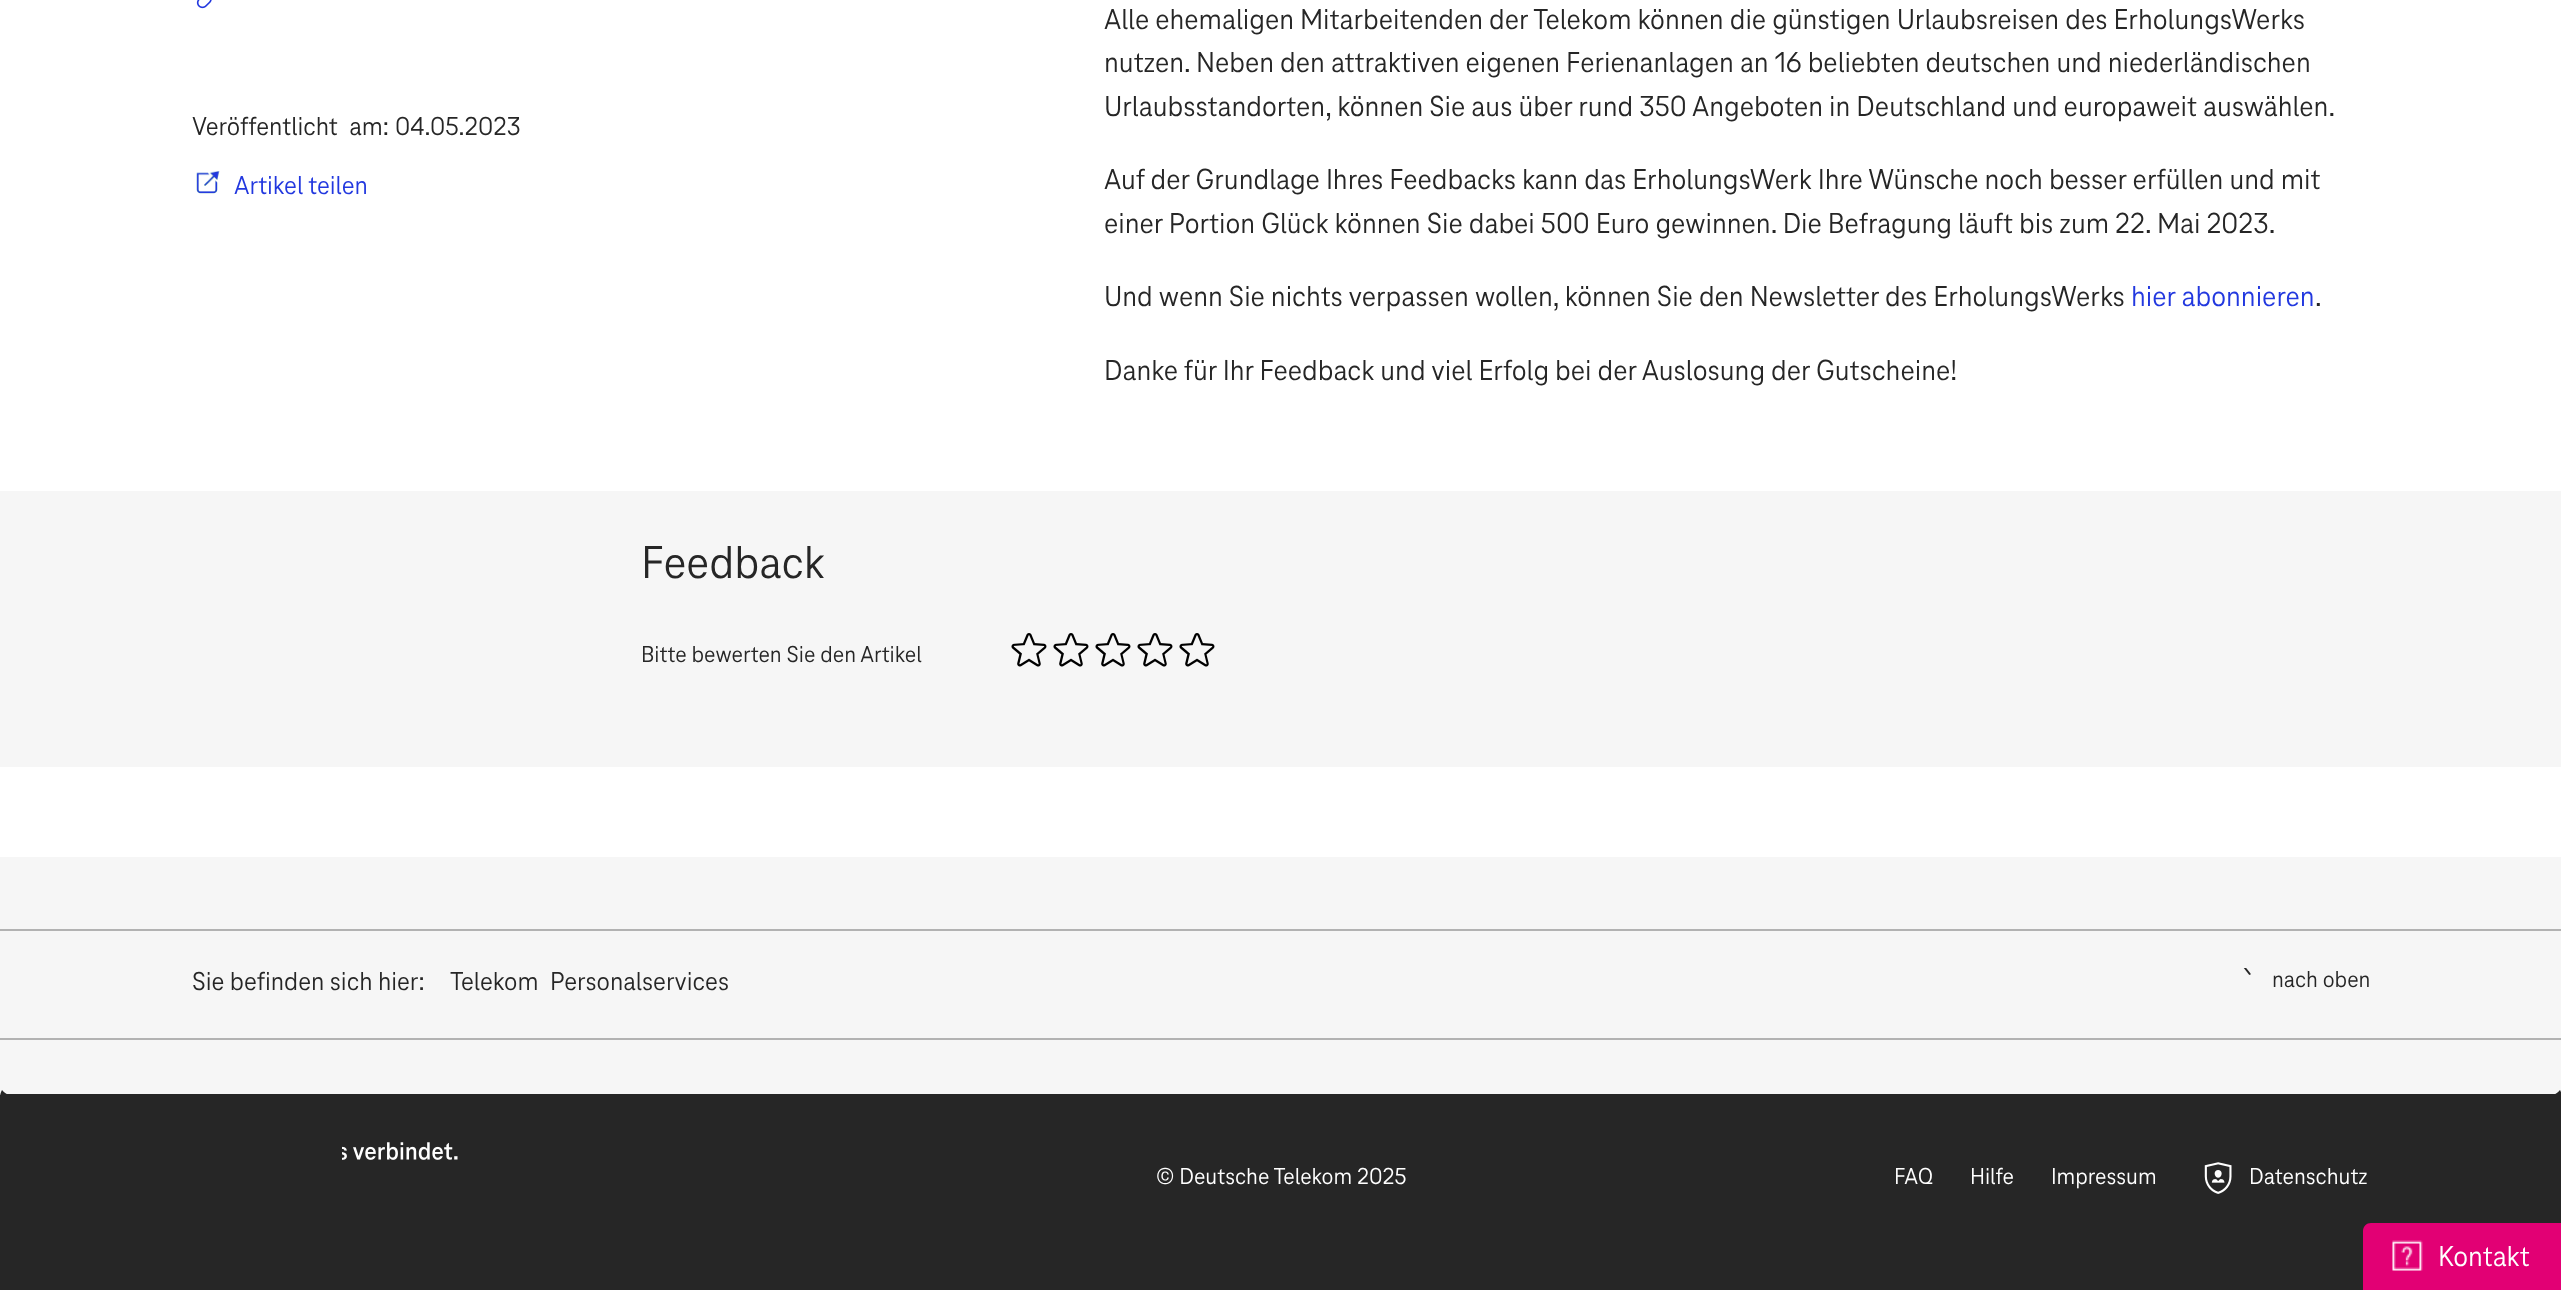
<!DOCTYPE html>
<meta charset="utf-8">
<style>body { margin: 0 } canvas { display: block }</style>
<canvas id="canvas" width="2561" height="1290"></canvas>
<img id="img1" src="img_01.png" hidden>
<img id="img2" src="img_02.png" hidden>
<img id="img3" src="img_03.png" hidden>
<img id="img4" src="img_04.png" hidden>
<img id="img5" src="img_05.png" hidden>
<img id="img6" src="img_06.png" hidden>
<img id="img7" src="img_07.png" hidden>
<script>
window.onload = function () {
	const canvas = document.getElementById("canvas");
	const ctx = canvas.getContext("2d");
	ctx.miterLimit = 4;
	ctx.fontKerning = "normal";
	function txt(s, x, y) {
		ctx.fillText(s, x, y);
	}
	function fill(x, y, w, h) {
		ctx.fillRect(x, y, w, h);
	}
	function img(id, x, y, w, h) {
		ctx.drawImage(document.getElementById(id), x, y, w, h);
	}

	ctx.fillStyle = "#FFFFFF";
	fill(0, 0, 2561, 1290);
	img("img1", 196, 0, 16, 9);
	img("img2", 196, 171, 24, 23);
	ctx.fillStyle = "#F6F6F6";
	fill(0, 491, 2561, 276);
	img("img3", 1011, 633, 36, 34);
	img("img3", 1053, 633, 36, 34);
	img("img3", 1095, 633, 36, 34);
	img("img3", 1137, 633, 36, 34);
	img("img3", 1179, 633, 36, 34);
	fill(0, 857, 2561, 238);
	ctx.fillStyle = "#B2B2B2";
	fill(0, 929, 2561, 2);
	fill(0, 1038, 2561, 2);
	img("img4", 2243, 968, 8, 7);
	ctx.fillStyle = "#262626";
	ctx.beginPath();
	ctx.moveTo(2, 1090);
	ctx.bezierCurveTo(1, 1092, 0, 1094, 0, 1097);
	ctx.lineTo(0, 1128);
	ctx.bezierCurveTo(0, 1135, 5, 1140, 12, 1140);
	ctx.lineTo(2550, 1140);
	ctx.bezierCurveTo(2557, 1140, 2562, 1135, 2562, 1128);
	ctx.lineTo(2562, 1097);
	ctx.bezierCurveTo(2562, 1094, 2561, 1092, 2560, 1090);
	ctx.bezierCurveTo(2558, 1093, 2554, 1095, 2550, 1095);
	ctx.lineTo(12, 1095);
	ctx.bezierCurveTo(8, 1095, 4, 1093, 2, 1090);
	ctx.closePath();
	ctx.fill();
	fill(6, 1094, 2550, 1);
	fill(0, 1095, 2561, 195);
	img("img5", 342, 1142, 116, 18);
	img("img6", 2204, 1162, 28, 32);
	ctx.fillStyle = "#E20074";
	ctx.beginPath();
	ctx.moveTo(2371, 1223);
	ctx.lineTo(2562, 1223);
	ctx.lineTo(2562, 1290);
	ctx.lineTo(2363, 1290);
	ctx.lineTo(2363, 1231);
	ctx.bezierCurveTo(2363, 1226.5, 2366.5, 1223, 2371, 1223);
	ctx.closePath();
	ctx.fill();
	img("img7", 2392, 1240, 31, 31);
	ctx.wordSpacing = "6px";
	ctx.font = "27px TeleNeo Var";
	ctx.fillStyle = "#262626";
	txt("Veröffentlicht am:", 192, 135);
	ctx.wordSpacing = "0px";
	txt("04.05.2023", 395, 135);
	ctx.fillStyle = "#2238DF";
	txt("Artikel teilen", 234, 194);
	ctx.font = "30px TeleNeo Var";
	ctx.fillStyle = "#262626";
	txt("Alle ehemaligen Mitarbeitenden der Telekom können die günstigen Urlaubsreisen des ErholungsWerks", 1104, 29);
	txt("nutzen. Neben den attraktiven eigenen Ferienanlagen an 16 beliebten deutschen und niederländischen", 1104, 72);
	txt("Urlaubsstandorten, können Sie aus über rund 350 Angeboten in Deutschland und europaweit auswählen.", 1104, 116);
	txt("Auf der Grundlage Ihres Feedbacks kann das ErholungsWerk Ihre Wünsche noch besser erfüllen und mit", 1104, 189);
	txt("einer Portion Glück können Sie dabei 500 Euro gewinnen. Die Befragung läuft bis zum 22. Mai 2023.", 1104, 233);
	txt("Und wenn Sie nichts verpassen wollen, können Sie den Newsletter des ErholungsWerks", 1104, 306);
	ctx.fillStyle = "#2238DF";
	txt("hier abonnieren", 2131, 306);
	ctx.fillStyle = "#262626";
	txt(".", 2315, 306);
	txt("Danke für Ihr Feedback und viel Erfolg bei der Auslosung der Gutscheine!", 1104, 380);
	ctx.font = "48px TeleNeo Var";
	txt("Feedback", 641, 578);
	ctx.font = "24px TeleNeo Var";
	txt("Bitte bewerten Sie den Artikel", 641, 662);
	ctx.font = "27px TeleNeo Var";
	txt("Sie befinden sich hier:", 192, 990);
	ctx.wordSpacing = "6px";
	txt("Telekom Personalservices", 450, 990);
	ctx.wordSpacing = "0px";
	ctx.font = "24px TeleNeo Var";
	txt("nach oben", 2272, 987);
	ctx.fillStyle = "#FFFFFF";
	txt("© Deutsche Telekom 2025", 1156, 1184);
	txt("FAQ", 1894, 1184);
	txt("Hilfe", 1970, 1184);
	txt("Impressum", 2051, 1184);
	txt("Datenschutz", 2249, 1184);
	ctx.font = "30px TeleNeo Var";
	txt("Kontakt", 2438, 1266);
};
</script>
